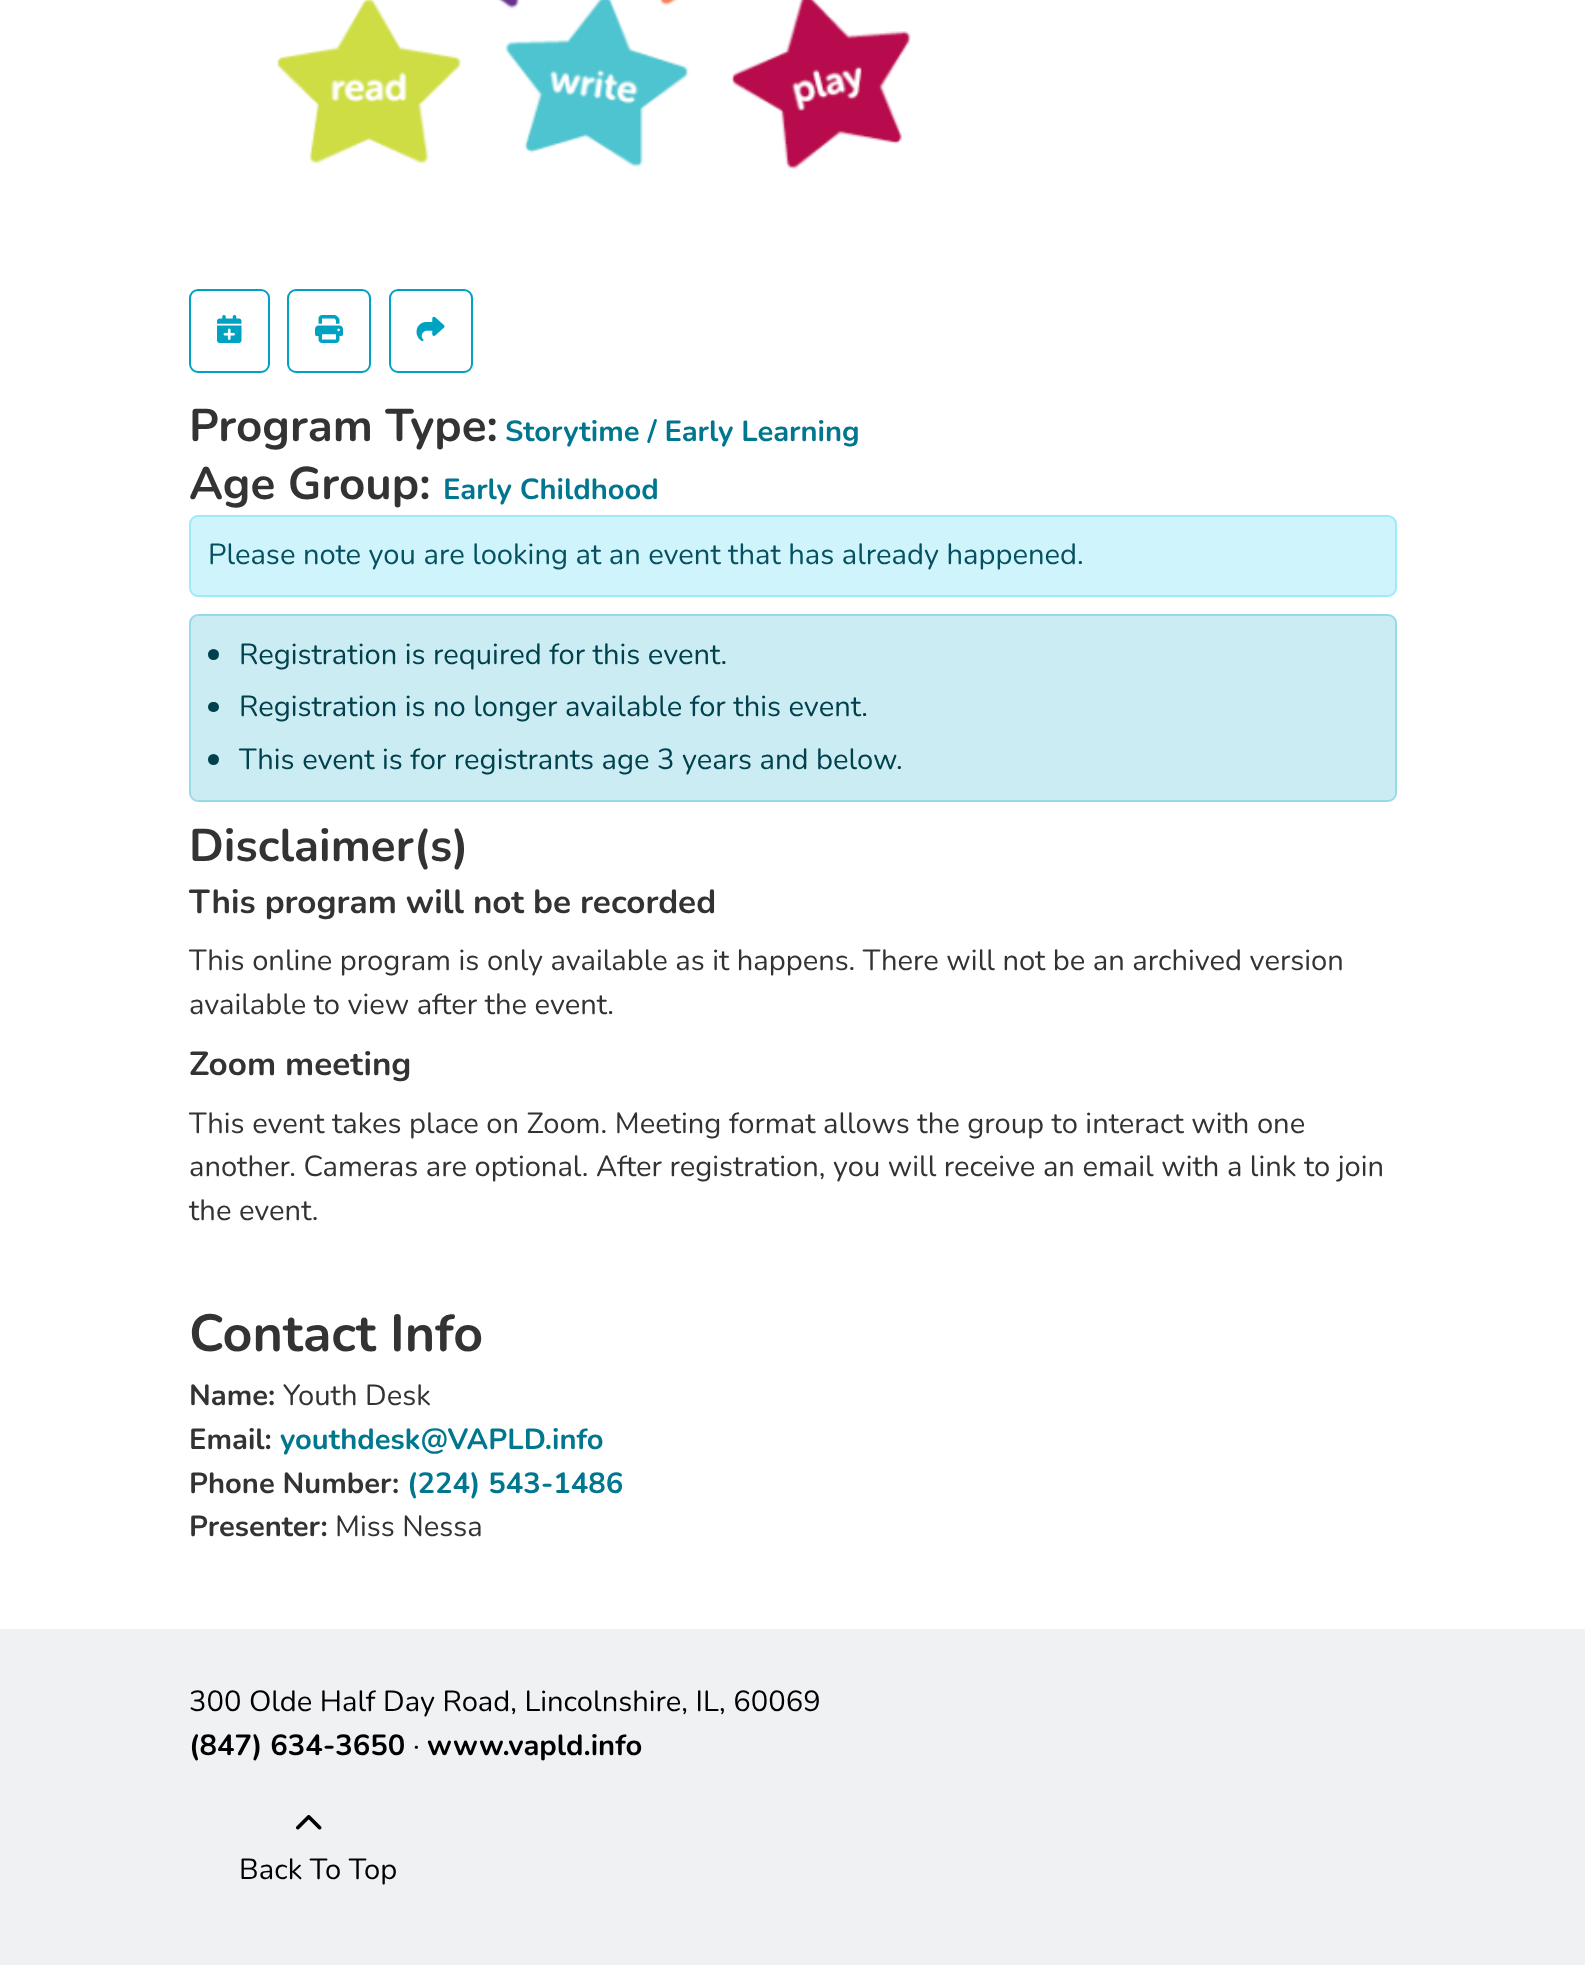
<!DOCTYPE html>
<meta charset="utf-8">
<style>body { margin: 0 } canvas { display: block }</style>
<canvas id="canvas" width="1585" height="1965"></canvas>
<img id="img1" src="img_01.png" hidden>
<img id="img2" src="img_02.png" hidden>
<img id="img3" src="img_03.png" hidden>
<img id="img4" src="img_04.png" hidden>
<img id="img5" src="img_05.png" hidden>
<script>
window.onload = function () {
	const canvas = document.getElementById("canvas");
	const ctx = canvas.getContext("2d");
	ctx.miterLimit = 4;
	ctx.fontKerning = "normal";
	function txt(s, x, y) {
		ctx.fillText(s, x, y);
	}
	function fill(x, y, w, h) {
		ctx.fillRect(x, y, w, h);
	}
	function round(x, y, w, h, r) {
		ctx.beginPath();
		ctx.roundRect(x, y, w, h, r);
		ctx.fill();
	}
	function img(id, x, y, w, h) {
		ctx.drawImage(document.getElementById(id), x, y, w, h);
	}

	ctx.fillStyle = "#FFFFFF";
	fill(0, 0, 1585, 1965);
	img("img1", 276, 0, 635, 169);
	ctx.beginPath();
	ctx.roundRect(190, 290, 79, 82, 8);
	ctx.strokeStyle = "#00A2C2";
	ctx.lineWidth = 2;
	ctx.stroke();
	img("img2", 217, 315, 25, 28);
	ctx.beginPath();
	ctx.roundRect(288, 290, 82, 82, 8);
	ctx.stroke();
	img("img3", 315, 315, 28, 28);
	ctx.beginPath();
	ctx.roundRect(390, 290, 82, 82, 8);
	ctx.stroke();
	img("img4", 416, 316, 29, 26);
	ctx.fillStyle = "#CFF4FC";
	ctx.beginPath();
	ctx.roundRect(190, 516, 1206, 80, 8);
	ctx.fill();
	ctx.strokeStyle = "#9EEAF9";
	ctx.stroke();
	ctx.fillStyle = "#CCECF3";
	ctx.beginPath();
	ctx.roundRect(190, 615, 1206, 186, 8);
	ctx.fill();
	ctx.strokeStyle = "#99DAE7";
	ctx.stroke();
	ctx.fillStyle = "#00414E";
	ctx.beginPath();
	ctx.arc(213.5, 654.5, 5.5, 0, Math.PI * 2);
	ctx.fill();
	round(208, 702, 11, 10, 5);
	ctx.beginPath();
	ctx.arc(213.5, 759.5, 5.5, 0, Math.PI * 2);
	ctx.fill();
	ctx.fillStyle = "#EFF1F2";
	fill(0, 1629, 1585, 336);
	img("img5", 296, 1815, 26, 15);
	ctx.font = "bold 45.75px Nunito";
	ctx.fillStyle = "#333333";
	txt("Program Type:", 189, 441);
	ctx.font = "bold 29.15px Nunito";
	ctx.fillStyle = "#00778F";
	txt("Storytime / Early Learning", 505, 441);
	ctx.font = "bold 45.75px Nunito";
	ctx.fillStyle = "#333333";
	txt("Age Group:", 189, 499);
	ctx.font = "bold 29.15px Nunito";
	ctx.fillStyle = "#00778F";
	txt("Early Childhood", 443, 499);
	ctx.font = "29.15px Nunito";
	ctx.fillStyle = "#055160";
	txt("Please note you are looking at an event that has already happened.", 208, 564);
	ctx.fillStyle = "#00414E";
	txt("Registration is required for this event.", 239, 664);
	txt("Registration is no longer available for this event.", 239, 716);
	txt("This event is for registrants age 3 years and below.", 239, 769);
	ctx.font = "bold 45.75px Nunito";
	ctx.fillStyle = "#333333";
	txt("Disclaimer(s)", 189, 861);
	ctx.font = "bold 33.25px Nunito";
	txt("This program will not be recorded", 189, 913);
	ctx.font = "29.15px Nunito";
	txt("This online program is only available as it happens. There will not be an archived version", 189, 970);
	txt("available to view after the event.", 189, 1014);
	ctx.font = "bold 33.25px Nunito";
	txt("Zoom meeting", 189, 1075);
	ctx.font = "29.15px Nunito";
	txt("This event takes place on Zoom. Meeting format allows the group to interact with one", 189, 1133);
	txt("another. Cameras are optional. After registration, you will receive an email with a link to join", 189, 1176);
	txt("the event.", 189, 1220);
	ctx.font = "bold 52px Nunito";
	txt("Contact Info", 189, 1351);
	ctx.font = "bold 29.15px Nunito";
	txt("Name:", 189, 1405);
	ctx.font = "29.15px Nunito";
	txt("Youth Desk", 283, 1405);
	ctx.font = "bold 29.15px Nunito";
	txt("Email:", 189, 1449);
	ctx.fillStyle = "#00778F";
	txt("youthdesk@VAPLD.info", 280, 1449);
	ctx.fillStyle = "#333333";
	txt("Phone Number:", 189, 1493);
	ctx.fillStyle = "#00778F";
	txt("(224) 543-1486", 407, 1493);
	ctx.fillStyle = "#333333";
	txt("Presenter:", 189, 1536);
	ctx.font = "29.15px Nunito";
	txt("Miss Nessa", 335, 1536);
	ctx.fillStyle = "#000000";
	txt("300 Olde Half Day Road, Lincolnshire, IL, 60069", 189, 1711);
	ctx.font = "bold 29.15px Nunito";
	txt("(847) 634-3650", 189, 1755);
	ctx.font = "29.15px Nunito";
	txt("·", 413, 1755);
	ctx.font = "bold 29.15px Nunito";
	txt("www.vapld.info", 427, 1755);
	ctx.font = "29.15px Nunito";
	txt("Back To Top", 239, 1879);
};
</script>
